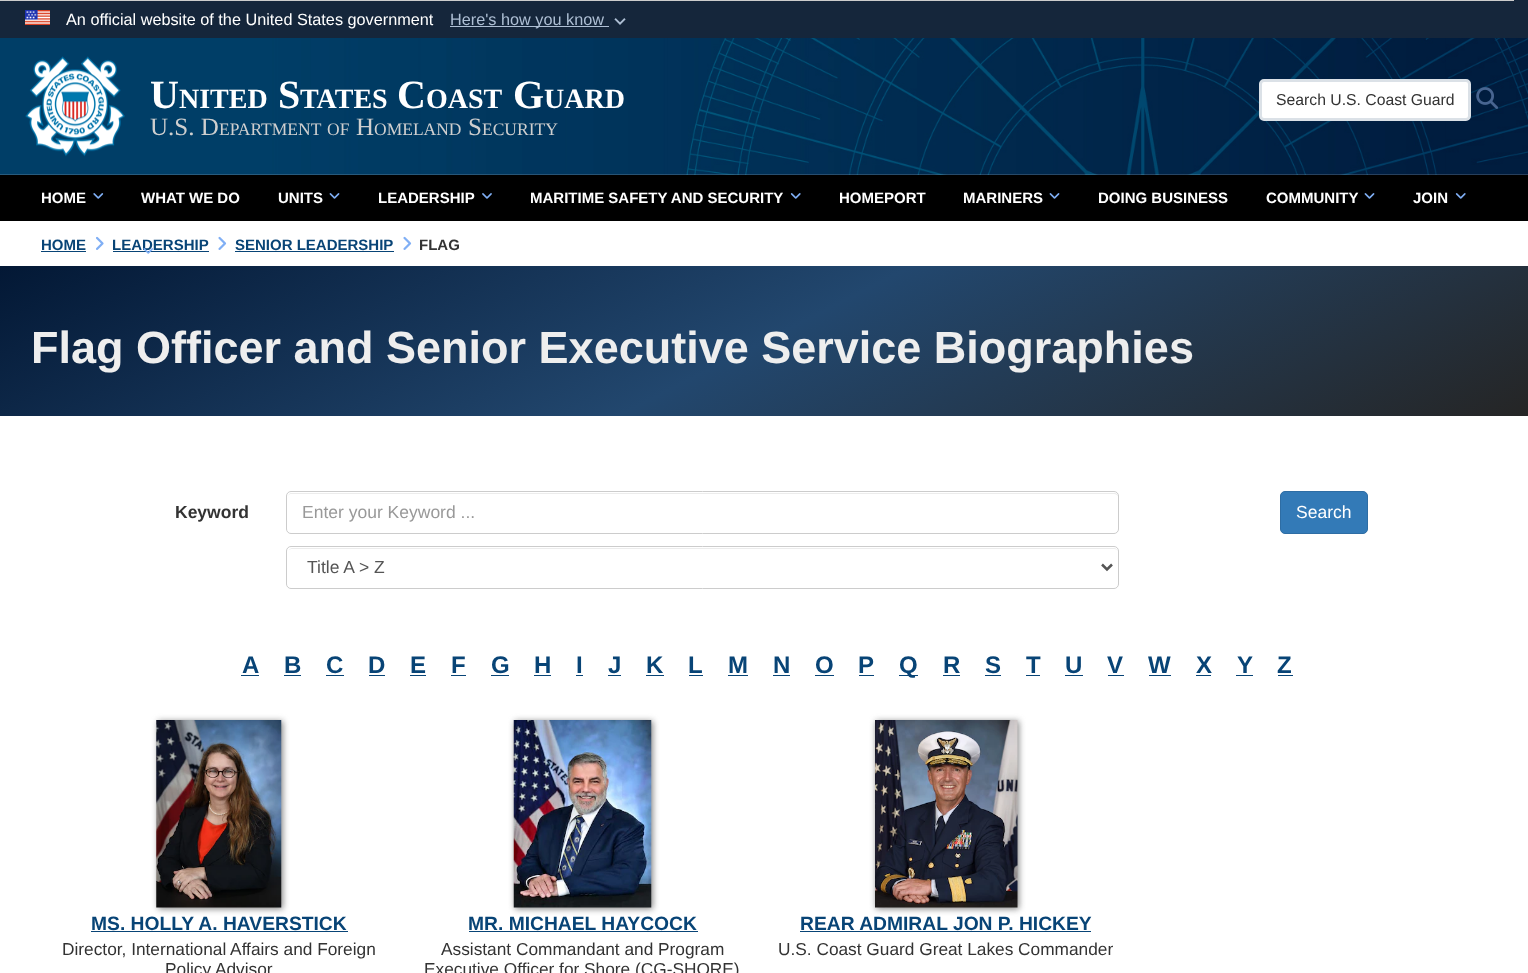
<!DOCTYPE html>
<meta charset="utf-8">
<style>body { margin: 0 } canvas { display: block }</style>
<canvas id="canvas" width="1528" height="973"></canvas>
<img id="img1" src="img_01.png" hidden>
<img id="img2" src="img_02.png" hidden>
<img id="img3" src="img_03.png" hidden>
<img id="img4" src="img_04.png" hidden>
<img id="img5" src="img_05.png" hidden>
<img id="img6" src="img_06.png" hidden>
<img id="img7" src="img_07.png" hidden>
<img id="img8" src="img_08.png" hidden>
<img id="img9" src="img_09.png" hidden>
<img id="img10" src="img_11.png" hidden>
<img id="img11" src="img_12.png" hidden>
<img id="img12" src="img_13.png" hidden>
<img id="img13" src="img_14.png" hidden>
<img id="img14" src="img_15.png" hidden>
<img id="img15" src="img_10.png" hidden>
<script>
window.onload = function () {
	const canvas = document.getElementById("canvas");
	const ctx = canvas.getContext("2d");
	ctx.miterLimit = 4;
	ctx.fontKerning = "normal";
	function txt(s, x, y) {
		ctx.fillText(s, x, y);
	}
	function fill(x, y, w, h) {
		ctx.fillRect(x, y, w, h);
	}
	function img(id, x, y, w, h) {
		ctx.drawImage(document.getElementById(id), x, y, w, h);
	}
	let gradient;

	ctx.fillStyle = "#FFFFFF";
	fill(0, 0, 1528, 973);
	ctx.fillStyle = "#15263B";
	fill(0, 0, 1528, 38);
	img("img1", 25, 10, 25, 15);
	ctx.fillStyle = "#AEBFD4";
	fill(450, 26, 159, 1);
	img("img2", 614, 18, 12, 7);
	ctx.fillStyle = "#CCCCCC";
	fill(0, 0, 1514, 1);
	img("img3", 0, 38, 1528, 137);
	img("img4", 25, 56, 100, 101);
	ctx.fillStyle = "#FFFFFF";
	ctx.beginPath();
	ctx.roundRect(1260.5, 80.5, 209, 39, 3.5);
	ctx.fill();
	ctx.strokeStyle = "#DBE1E7";
	ctx.lineWidth = 3;
	ctx.stroke();
	img("img5", 1476, 87, 23, 22);
	ctx.fillStyle = "#000000";
	fill(0, 175, 1528, 46);
	img("img6", 93, 193, 11, 6);
	img("img7", 329, 193, 11, 6);
	img("img8", 482, 193, 10, 6);
	img("img9", 790, 193, 11, 6);
	img("img7", 1049, 193, 11, 6);
	img("img7", 1364, 193, 11, 6);
	img("img9", 1455, 193, 11, 6);
	ctx.fillStyle = "#084476";
	fill(41, 251, 45, 1);
	img("img10", 96, 236, 8, 14);
	fill(113, 251, 96, 1);
	img("img11", 218, 236, 9, 14);
	fill(235, 251, 159, 1);
	img("img11", 403, 236, 9, 14);
	gradient = ctx.createLinearGradient(576, -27, 952, 710);
	gradient.addColorStop(0, "#031835");
	gradient.addColorStop(0.5, "#22476E");
	gradient.addColorStop(1, "#252525");
	ctx.fillStyle = gradient;
	fill(0, 266, 1528, 150);
	ctx.fillStyle = "#ECECEC";
	ctx.beginPath();
	ctx.moveTo(291, 494);
	ctx.lineTo(1114, 494);
	ctx.bezierCurveTo(1116, 494, 1118, 495, 1118, 498);
	ctx.bezierCurveTo(1118, 495, 1117, 493, 1114, 493);
	ctx.lineTo(292, 493);
	ctx.bezierCurveTo(289, 493, 288, 495, 288, 498);
	ctx.bezierCurveTo(288, 495, 289, 494, 291, 494);
	ctx.closePath();
	ctx.fill();
	ctx.beginPath();
	ctx.roundRect(286.5, 491.5, 832, 42, 4.5);
	ctx.strokeStyle = "#CCCCCC";
	ctx.lineWidth = 1;
	ctx.stroke();
	ctx.fillStyle = "#337AB7";
	ctx.beginPath();
	ctx.roundRect(1280.5, 491.5, 87, 42, 4.5);
	ctx.fill();
	ctx.strokeStyle = "#2E6DA4";
	ctx.stroke();
	ctx.fillStyle = "#ECECEC";
	ctx.beginPath();
	ctx.moveTo(291, 549);
	ctx.lineTo(1114, 549);
	ctx.bezierCurveTo(1116, 549, 1118, 550, 1118, 552);
	ctx.bezierCurveTo(1118, 550, 1116, 548, 1114, 548);
	ctx.lineTo(292, 548);
	ctx.bezierCurveTo(291, 548, 289, 549, 289, 550);
	ctx.closePath();
	ctx.fill();
	ctx.beginPath();
	ctx.roundRect(286.5, 546.5, 832, 42, 4.5);
	ctx.strokeStyle = "#CCCCCC";
	ctx.stroke();
	ctx.beginPath();
	ctx.moveTo(1102, 564.5);
	ctx.lineTo(1107, 569.5);
	ctx.lineTo(1112, 564.5);
	ctx.strokeStyle = "#555555";
	ctx.lineWidth = 2.5;
	ctx.stroke();
	ctx.fillStyle = "#084476";
	fill(241, 675, 18, 1);
	fill(284, 675, 17, 1);
	fill(326, 675, 18, 1);
	fill(369, 675, 16, 1);
	fill(410, 675, 16, 1);
	fill(451, 675, 15, 1);
	fill(491, 675, 18, 1);
	fill(534, 675, 17, 1);
	fill(576, 675, 7, 1);
	fill(608, 675, 13, 1);
	fill(646, 675, 18, 1);
	fill(689, 675, 14, 1);
	fill(728, 675, 20, 1);
	fill(773, 675, 17, 1);
	fill(815, 675, 19, 1);
	fill(859, 675, 15, 1);
	fill(899, 675, 19, 1);
	fill(943, 675, 17, 1);
	fill(985, 675, 16, 1);
	fill(1026, 675, 14, 1);
	fill(1065, 675, 18, 1);
	fill(1108, 675, 16, 1);
	fill(1149, 675, 22, 1);
	fill(1196, 675, 15, 1);
	fill(1236, 675, 17, 1);
	fill(1278, 675, 15, 1);
	ctx.fillStyle = "#888888";
	ctx.filter = "blur(3px)";
	ctx.beginPath();
	ctx.rect(158, 721, 125, 188);
	ctx.fill();
	ctx.filter = "none";
	img("img12", 156, 720, 126, 188);
	ctx.fillStyle = "#084476";
	fill(91, 931, 257, 1);
	ctx.fillStyle = "#888888";
	ctx.filter = "blur(3px)";
	ctx.beginPath();
	ctx.rect(515, 721, 138, 188);
	ctx.fill();
	ctx.filter = "none";
	img("img13", 513, 720, 139, 188);
	ctx.fillStyle = "#084476";
	fill(469, 931, 229, 1);
	ctx.fillStyle = "#888888";
	ctx.filter = "blur(3px)";
	ctx.beginPath();
	ctx.rect(876, 721, 143, 188);
	ctx.fill();
	ctx.filter = "none";
	img("img14", 875, 720, 143, 188);
	ctx.fillStyle = "#084476";
	fill(800, 931, 291, 1);
	ctx.font = "16.25px Liberation Sans";
	ctx.fillStyle = "#FFFFFF";
	txt("An official website of the United States government", 66, 25);
	ctx.fillStyle = "#AEBFD4";
	txt("Here's how you know", 450, 25);
	ctx.font = "bold 40px Liberation Serif";
	ctx.fillStyle = "#FFFFFF";
	txt("U", 150, 108);
	ctx.font = "bold 28px Liberation Serif";
	txt("NITED", 179, 108);
	ctx.font = "bold 40px Liberation Serif";
	txt("S", 278, 108);
	ctx.font = "bold 28px Liberation Serif";
	txt("TATES", 300, 108);
	ctx.font = "bold 40px Liberation Serif";
	txt("C", 397, 108);
	ctx.font = "bold 28px Liberation Serif";
	txt("OAST", 426, 108);
	ctx.font = "bold 40px Liberation Serif";
	txt("G", 513, 108);
	ctx.font = "bold 28px Liberation Serif";
	txt("UARD", 544, 108);
	ctx.font = "25px Liberation Serif";
	ctx.fillStyle = "#CFCFCF";
	txt("U.S. D", 150, 135);
	ctx.font = "17.5px Liberation Serif";
	txt("EPARTMENT", 219, 135);
	txt("OF", 327, 135);
	ctx.font = "25px Liberation Serif";
	txt("H", 356, 135);
	ctx.font = "17.5px Liberation Serif";
	txt("OMELAND", 374, 135);
	ctx.font = "25px Liberation Serif";
	txt("S", 468, 135);
	ctx.font = "17.5px Liberation Serif";
	txt("ECURITY", 482, 135);
	ctx.font = "15.75px Liberation Sans";
	ctx.fillStyle = "#333333";
	txt("Search U.S. Coast Guard", 1276, 105);
	ctx.font = "bold 15px Liberation Sans";
	ctx.fillStyle = "#FFFFFF";
	txt("HOME", 41, 203);
	txt("WHAT WE DO", 141, 203);
	txt("UNITS", 278, 203);
	txt("LEADERSHIP", 378, 203);
	txt("MARITIME SAFETY AND SECURITY", 530, 203);
	txt("HOMEPORT", 839, 203);
	txt("MARINERS", 963, 203);
	txt("DOING BUSINESS", 1098, 203);
	txt("COMMUNITY", 1266, 203);
	txt("JOIN", 1413, 203);
	ctx.fillStyle = "#084476";
	txt("HOME", 41, 250);
	txt("LEADERSHIP", 112, 250);
	img("img15", 143, 248, 11, 6);
	txt("SENIOR LEADERSHIP", 235, 250);
	ctx.fillStyle = "#333333";
	txt("FLAG", 419, 250);
	ctx.font = "bold 45px Liberation Sans";
	ctx.fillStyle = "#EEEEEE";
	txt("Flag Officer and Senior Executive Service Biographies", 31, 363);
	ctx.font = "bold 17.5px Liberation Sans";
	ctx.fillStyle = "#333333";
	txt("Keyword", 175, 518);
	ctx.font = "17.5px Liberation Sans";
	ctx.fillStyle = "#999999";
	txt("Enter your Keyword ...", 302, 518);
	ctx.fillStyle = "#FFFFFF";
	txt("Search", 1296, 518);
	ctx.fillStyle = "#555555";
	txt("Title A > Z", 307, 573);
	ctx.font = "bold 24px Liberation Sans";
	ctx.fillStyle = "#084476";
	txt("A", 242, 673);
	txt("B", 284, 673);
	txt("C", 326, 673);
	txt("D", 368, 673);
	txt("E", 410, 673);
	txt("F", 451, 673);
	txt("G", 491, 673);
	txt("H", 534, 673);
	txt("I", 576, 673);
	txt("J", 608, 673);
	txt("K", 646, 673);
	txt("L", 688, 673);
	txt("M", 728, 673);
	txt("N", 773, 673);
	txt("O", 815, 673);
	txt("P", 858, 673);
	txt("Q", 899, 673);
	txt("R", 943, 673);
	txt("S", 985, 673);
	txt("T", 1026, 673);
	txt("U", 1065, 673);
	txt("V", 1107, 673);
	txt("W", 1148, 673);
	txt("X", 1196, 673);
	txt("Y", 1237, 673);
	txt("Z", 1277, 673);
	ctx.font = "bold 19.25px Liberation Sans";
	txt("MS. HOLLY A. HAVERSTICK", 91, 930);
	ctx.font = "17.3px Liberation Sans";
	ctx.fillStyle = "#333333";
	txt("Director, International Affairs and Foreign", 62, 955);
	txt("Policy Advisor", 165, 975);
	ctx.font = "bold 19.25px Liberation Sans";
	ctx.fillStyle = "#084476";
	txt("MR. MICHAEL HAYCOCK", 468, 930);
	ctx.font = "17.3px Liberation Sans";
	ctx.fillStyle = "#333333";
	txt("Assistant Commandant and Program", 441, 955);
	txt("Executive Officer for Shore (CG-SHORE)", 424, 975);
	ctx.font = "bold 19.25px Liberation Sans";
	ctx.fillStyle = "#084476";
	txt("REAR ADMIRAL JON P. HICKEY", 800, 930);
	ctx.font = "17.3px Liberation Sans";
	ctx.fillStyle = "#333333";
	txt("U.S. Coast Guard Great Lakes Commander", 778, 955);
};
</script>
